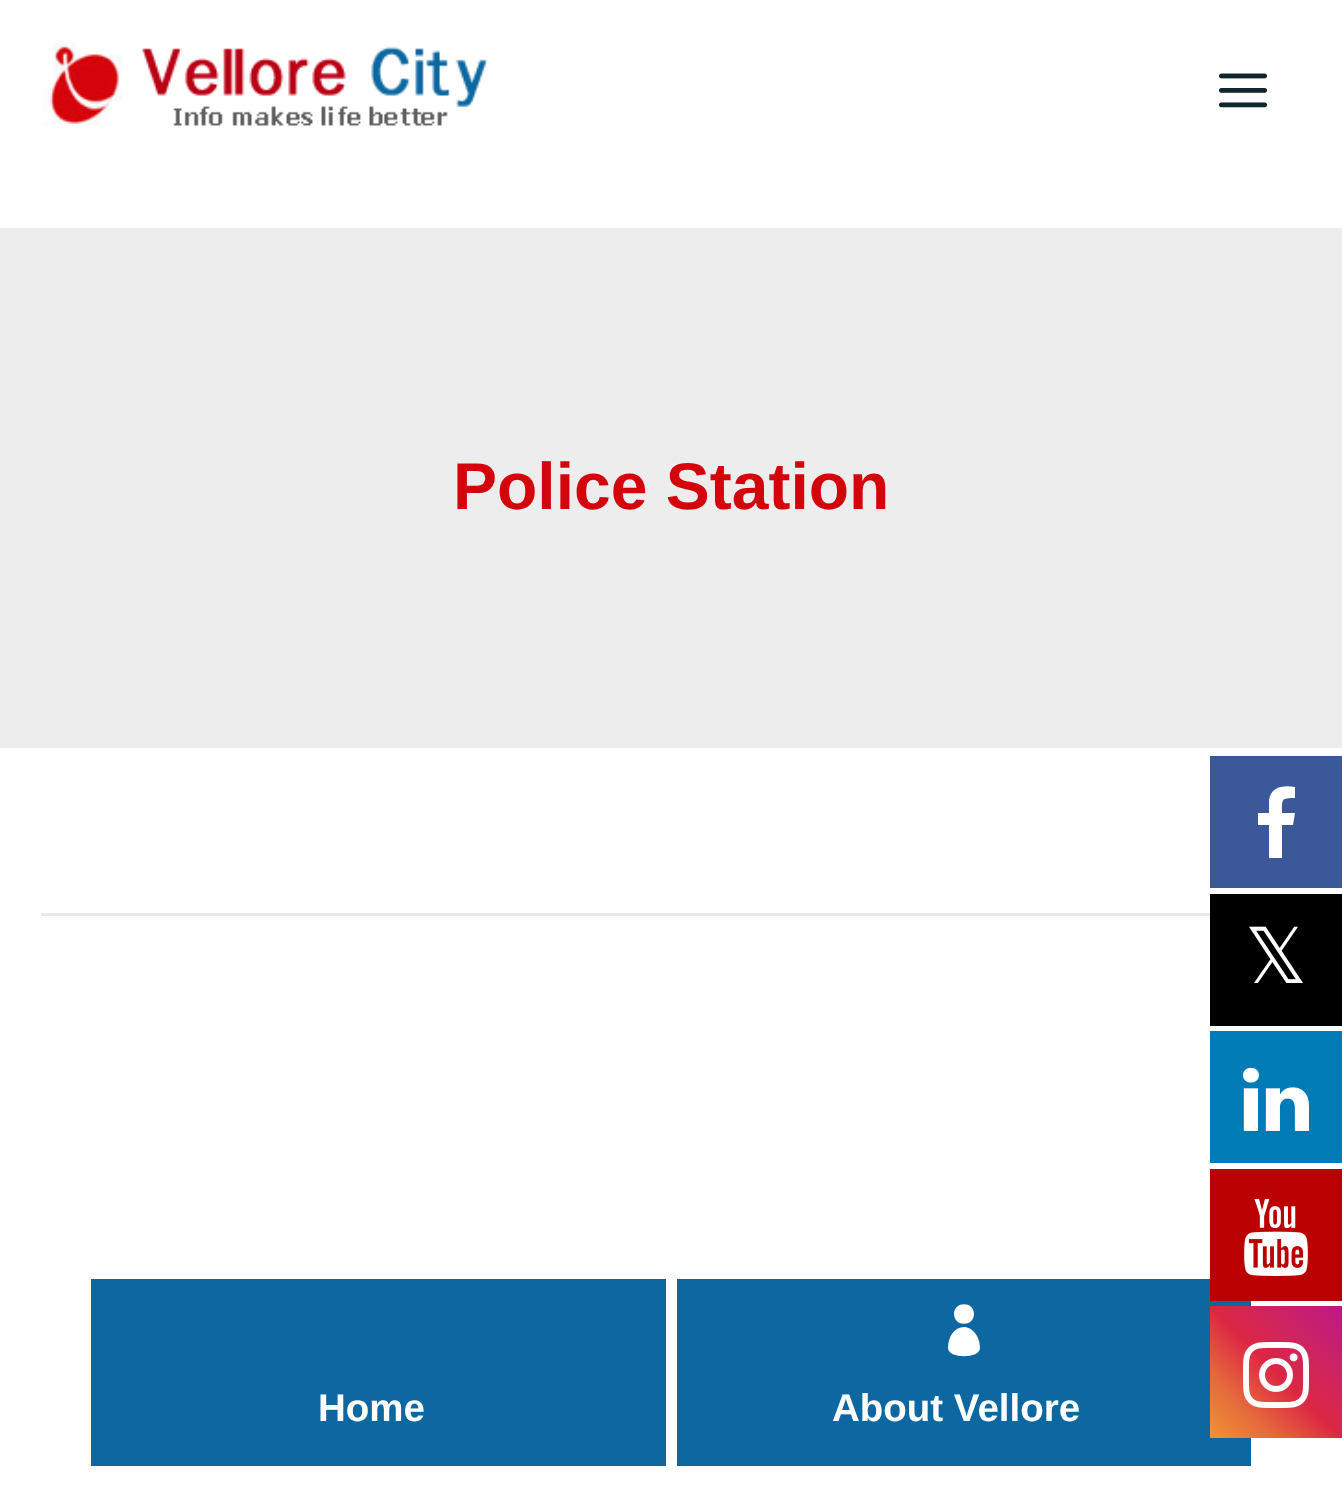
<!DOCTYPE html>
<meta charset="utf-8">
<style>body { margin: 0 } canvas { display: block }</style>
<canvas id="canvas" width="1342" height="1498"></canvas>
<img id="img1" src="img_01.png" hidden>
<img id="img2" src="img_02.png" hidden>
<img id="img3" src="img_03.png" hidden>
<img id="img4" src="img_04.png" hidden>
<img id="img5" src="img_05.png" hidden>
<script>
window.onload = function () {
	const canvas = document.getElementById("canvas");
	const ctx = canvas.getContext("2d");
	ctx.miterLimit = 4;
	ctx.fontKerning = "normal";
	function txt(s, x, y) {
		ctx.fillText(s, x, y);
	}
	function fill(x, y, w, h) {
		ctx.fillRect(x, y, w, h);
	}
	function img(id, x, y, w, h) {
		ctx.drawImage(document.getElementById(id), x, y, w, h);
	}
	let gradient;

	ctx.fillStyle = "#FFFFFF";
	fill(0, 0, 1342, 1498);
	img("img1", 43, 43, 445, 83);
	img("img2", 1219, 73, 48, 35);
	ctx.fillStyle = "#EDEDED";
	fill(0, 228, 1342, 520);
	ctx.fillStyle = "#EAEAEA";
	fill(41, 913, 1169, 3);
	ctx.fillStyle = "#3B5998";
	fill(1210, 756, 132, 132);
	ctx.fillStyle = "#FFFFFF";
	ctx.beginPath();
	ctx.moveTo(1295, 787);
	ctx.lineTo(1295, 798);
	ctx.bezierCurveTo(1281, 798, 1282, 799, 1282, 813);
	ctx.lineTo(1295, 813);
	ctx.lineTo(1293, 825);
	ctx.lineTo(1282, 825);
	ctx.lineTo(1282, 858);
	ctx.lineTo(1269, 858);
	ctx.lineTo(1269, 825);
	ctx.lineTo(1258, 825);
	ctx.lineTo(1258, 813);
	ctx.lineTo(1269, 813);
	ctx.lineTo(1269, 800);
	ctx.bezierCurveTo(1271, 786, 1284, 785, 1295, 787);
	ctx.closePath();
	ctx.fill();
	ctx.fillStyle = "#000000";
	fill(1210, 894, 132, 132);
	ctx.fillStyle = "#007BB6";
	fill(1210, 1031, 132, 132);
	img("img3", 1243, 1067, 66, 64);
	ctx.fillStyle = "#0D68A1";
	fill(677, 1279, 574, 187);
	ctx.fillStyle = "#BB0000";
	fill(1210, 1169, 132, 132);
	img("img4", 1244, 1199, 64, 77);
	gradient = ctx.createLinearGradient(1210, 1438, 1342, 1306);
	gradient.addColorStop(0, "#F09433");
	gradient.addColorStop(0.25, "#E6683C");
	gradient.addColorStop(0.5, "#DC2743");
	gradient.addColorStop(0.75, "#CC2366");
	gradient.addColorStop(1, "#BC1888");
	ctx.fillStyle = gradient;
	fill(1210, 1306, 132, 132);
	img("img5", 1243, 1342, 66, 66);
	ctx.fillStyle = "#0D68A1";
	fill(91, 1279, 575, 187);
	ctx.fillStyle = "#FFFFFF";
	ctx.beginPath();
	ctx.moveTo(974, 1314);
	ctx.bezierCurveTo(974, 1327, 954, 1327, 954, 1314);
	ctx.bezierCurveTo(954, 1301, 974, 1301, 974, 1314);
	ctx.closePath();
	ctx.moveTo(964, 1327);
	ctx.bezierCurveTo(972, 1327, 980, 1336, 980, 1348);
	ctx.bezierCurveTo(980, 1359, 948, 1359, 948, 1348);
	ctx.bezierCurveTo(948, 1336, 955, 1327, 964, 1327);
	ctx.closePath();
	ctx.fill();
	ctx.font = "bold 66px Liberation Sans";
	ctx.fillStyle = "#D3040C";
	txt("Police Station", 453, 509);
	ctx.font = "77px DejaVu Sans";
	ctx.fillStyle = "#FFFFFF";
	txt("𝕏", 1245, 983);
	ctx.font = "bold 38.5px Liberation Sans";
	txt("Home", 318, 1421);
	txt("About Vellore", 832, 1421);
};
</script>
